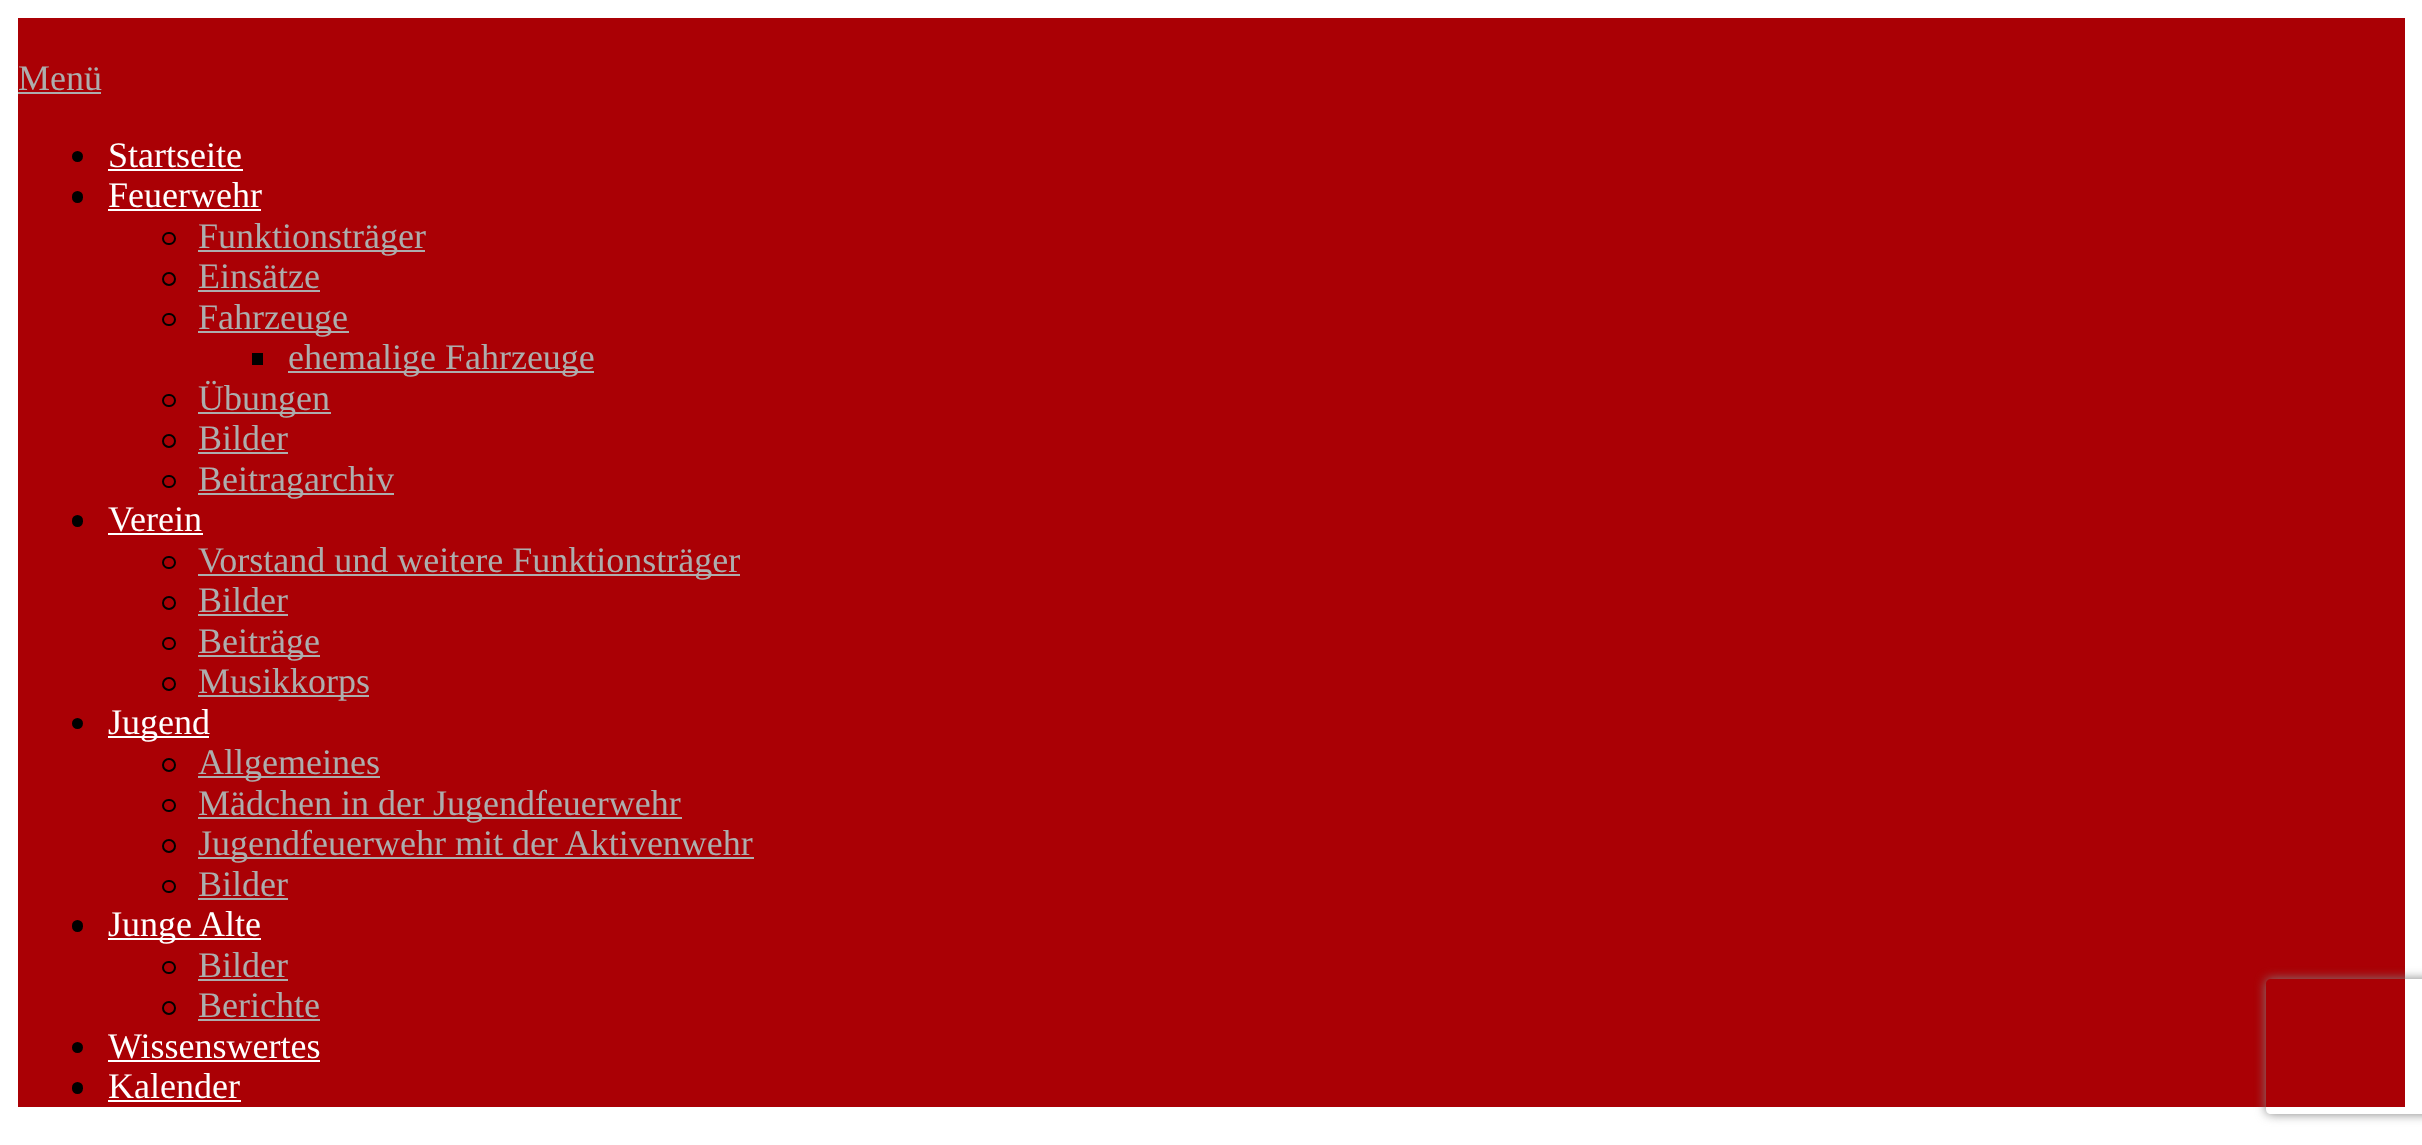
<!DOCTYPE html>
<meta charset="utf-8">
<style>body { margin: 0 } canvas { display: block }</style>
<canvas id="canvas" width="2422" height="1145"></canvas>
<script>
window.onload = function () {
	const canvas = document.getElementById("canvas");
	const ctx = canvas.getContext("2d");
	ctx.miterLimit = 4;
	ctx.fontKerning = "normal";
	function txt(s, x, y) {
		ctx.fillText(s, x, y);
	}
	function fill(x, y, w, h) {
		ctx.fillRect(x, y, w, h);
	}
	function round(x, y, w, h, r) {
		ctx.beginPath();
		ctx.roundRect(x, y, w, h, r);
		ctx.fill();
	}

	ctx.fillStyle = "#FFFFFF";
	fill(0, 0, 2422, 1145);
	ctx.fillStyle = "#AA0005";
	fill(18, 18, 2387, 1089);
	ctx.fillStyle = "#ADADAD";
	fill(18, 92, 83, 2);
	ctx.fillStyle = "#000000";
	ctx.beginPath();
	ctx.arc(77.5, 156.5, 5.5, 0, Math.PI * 2);
	ctx.fill();
	ctx.fillStyle = "#FFFFFF";
	fill(108, 169, 135, 2);
	ctx.fillStyle = "#000000";
	round(72, 191, 11, 12, 5.5);
	ctx.fillStyle = "#FFFFFF";
	fill(108, 209, 153, 2);
	ctx.beginPath();
	ctx.roundRect(163, 233, 12, 11, 5.5);
	ctx.strokeStyle = "#000000";
	ctx.lineWidth = 2;
	ctx.stroke();
	ctx.fillStyle = "#ADADAD";
	fill(198, 250, 227, 2);
	ctx.beginPath();
	ctx.arc(169, 279, 6, 0, Math.PI * 2);
	ctx.stroke();
	fill(198, 290, 122, 2);
	ctx.beginPath();
	ctx.roundRect(163, 314, 12, 11, 5.5);
	ctx.stroke();
	fill(198, 331, 151, 2);
	ctx.fillStyle = "#000000";
	fill(252, 353, 11, 12);
	ctx.fillStyle = "#ADADAD";
	fill(288, 371, 306, 2);
	ctx.beginPath();
	ctx.roundRect(163, 395, 12, 11, 5.5);
	ctx.stroke();
	fill(198, 412, 133, 2);
	ctx.beginPath();
	ctx.arc(169, 441, 6, 0, Math.PI * 2);
	ctx.stroke();
	fill(198, 452, 90, 2);
	ctx.beginPath();
	ctx.roundRect(163, 476, 12, 11, 5.5);
	ctx.stroke();
	fill(198, 493, 196, 2);
	ctx.fillStyle = "#000000";
	round(72, 515, 11, 12, 5.5);
	ctx.fillStyle = "#FFFFFF";
	fill(108, 533, 95, 2);
	ctx.beginPath();
	ctx.roundRect(163, 557, 12, 11, 5.5);
	ctx.stroke();
	ctx.fillStyle = "#ADADAD";
	fill(198, 574, 542, 2);
	ctx.beginPath();
	ctx.arc(169, 603, 6, 0, Math.PI * 2);
	ctx.stroke();
	fill(198, 614, 90, 2);
	ctx.beginPath();
	ctx.roundRect(163, 638, 12, 11, 5.5);
	ctx.stroke();
	fill(198, 655, 122, 2);
	ctx.beginPath();
	ctx.arc(169, 684, 6, 0, Math.PI * 2);
	ctx.stroke();
	fill(198, 695, 171, 2);
	ctx.fillStyle = "#000000";
	ctx.beginPath();
	ctx.arc(77.5, 723.5, 5.5, 0, Math.PI * 2);
	ctx.fill();
	ctx.fillStyle = "#FFFFFF";
	fill(108, 736, 101, 2);
	ctx.beginPath();
	ctx.arc(169, 765, 6, 0, Math.PI * 2);
	ctx.stroke();
	ctx.fillStyle = "#ADADAD";
	fill(198, 776, 182, 2);
	ctx.beginPath();
	ctx.roundRect(163, 800, 12, 11, 5.5);
	ctx.stroke();
	fill(198, 817, 484, 2);
	ctx.beginPath();
	ctx.arc(169, 846, 6, 0, Math.PI * 2);
	ctx.stroke();
	fill(198, 857, 556, 2);
	ctx.beginPath();
	ctx.roundRect(163, 881, 12, 11, 5.5);
	ctx.stroke();
	fill(198, 898, 90, 2);
	ctx.fillStyle = "#000000";
	round(72, 920, 11, 12, 5.5);
	ctx.fillStyle = "#FFFFFF";
	fill(108, 938, 153, 2);
	ctx.beginPath();
	ctx.roundRect(163, 962, 12, 11, 5.5);
	ctx.stroke();
	ctx.fillStyle = "#ADADAD";
	fill(198, 979, 90, 2);
	ctx.beginPath();
	ctx.arc(169, 1008, 6, 0, Math.PI * 2);
	ctx.stroke();
	fill(198, 1019, 122, 2);
	ctx.fillStyle = "#000000";
	ctx.beginPath();
	ctx.arc(77.5, 1047.5, 5.5, 0, Math.PI * 2);
	ctx.fill();
	ctx.fillStyle = "#FFFFFF";
	fill(108, 1060, 212, 2);
	ctx.fillStyle = "#000000";
	round(72, 1082, 11, 12, 5.5);
	ctx.fillStyle = "#FFFFFF";
	fill(108, 1100, 133, 2);
	ctx.save();
	ctx.beginPath();
	ctx.moveTo(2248, 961);
	ctx.lineTo(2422, 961);
	ctx.lineTo(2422, 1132);
	ctx.lineTo(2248, 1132);
	ctx.closePath();
	ctx.moveTo(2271, 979);
	ctx.lineTo(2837, 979);
	ctx.bezierCurveTo(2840, 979, 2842, 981, 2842, 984);
	ctx.lineTo(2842, 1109);
	ctx.bezierCurveTo(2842, 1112, 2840, 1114, 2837, 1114);
	ctx.lineTo(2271, 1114);
	ctx.bezierCurveTo(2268, 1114, 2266, 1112, 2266, 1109);
	ctx.lineTo(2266, 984);
	ctx.bezierCurveTo(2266, 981, 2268, 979, 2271, 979);
	ctx.closePath();
	ctx.clip("evenodd");
	ctx.fillStyle = "#808080";
	ctx.filter = "blur(5.5px)";
	ctx.beginPath();
	ctx.roundRect(2266, 979, 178, 135, 5);
	ctx.fill();
	ctx.filter = "none";
	ctx.restore();
	ctx.font = "36px Liberation Serif";
	ctx.fillStyle = "#ADADAD";
	txt("Menü", 18, 90);
	ctx.fillStyle = "#FFFFFF";
	txt("Startseite", 108, 167);
	txt("Feuerwehr", 108, 207);
	ctx.fillStyle = "#ADADAD";
	txt("Funktionsträger", 198, 248);
	txt("Einsätze", 198, 288);
	txt("Fahrzeuge", 198, 329);
	txt("ehemalige Fahrzeuge", 288, 369);
	txt("Übungen", 198, 410);
	txt("Bilder", 198, 450);
	txt("Beitragarchiv", 198, 491);
	ctx.fillStyle = "#FFFFFF";
	txt("Verein", 108, 531);
	ctx.fillStyle = "#ADADAD";
	txt("Vorstand und weitere Funktionsträger", 198, 572);
	txt("Bilder", 198, 612);
	txt("Beiträge", 198, 653);
	txt("Musikkorps", 198, 693);
	ctx.fillStyle = "#FFFFFF";
	txt("Jugend", 108, 734);
	ctx.fillStyle = "#ADADAD";
	txt("Allgemeines", 198, 774);
	txt("Mädchen in der Jugendfeuerwehr", 198, 815);
	txt("Jugendfeuerwehr mit der Aktivenwehr", 198, 855);
	txt("Bilder", 198, 896);
	ctx.fillStyle = "#FFFFFF";
	txt("Junge Alte", 108, 936);
	ctx.fillStyle = "#ADADAD";
	txt("Bilder", 198, 977);
	txt("Berichte", 198, 1017);
	ctx.fillStyle = "#FFFFFF";
	txt("Wissenswertes", 108, 1058);
	txt("Kalender", 108, 1098);
};
</script>
